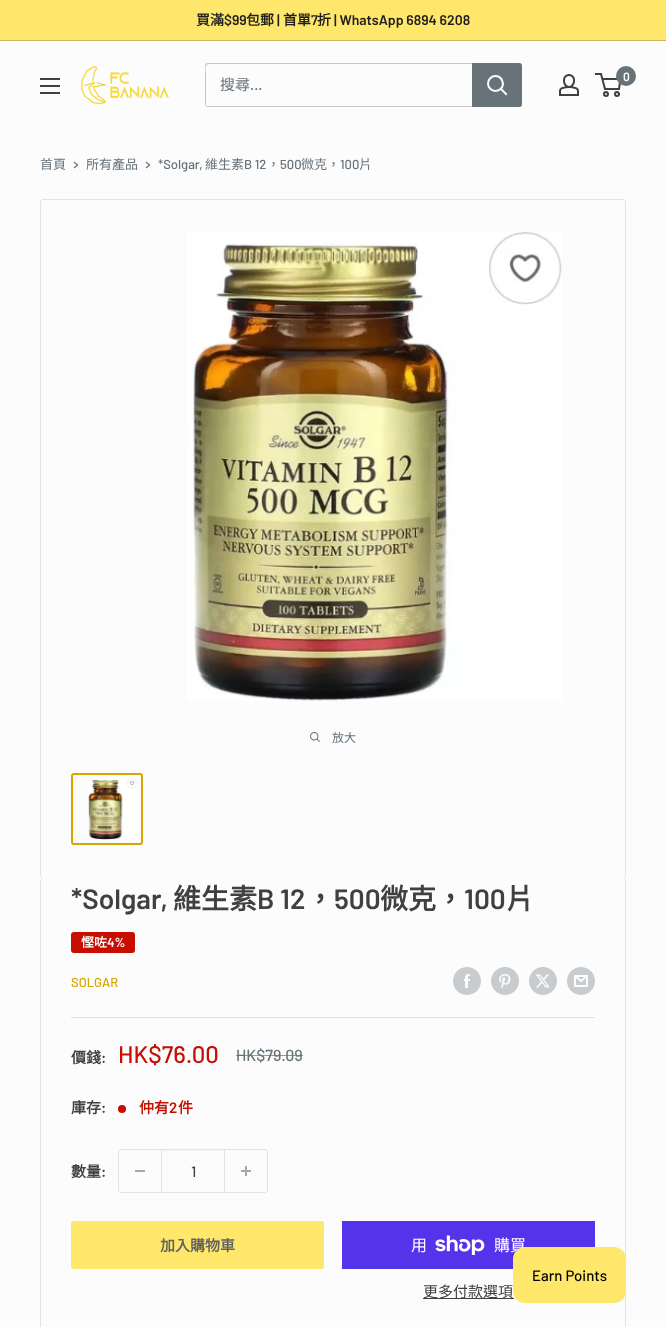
<!DOCTYPE html>
<meta charset="utf-8">
<style>body { margin: 0 } canvas { display: block }</style>
<canvas id="canvas" width="666" height="1327"></canvas>
<img id="img1" src="img_01.png" hidden>
<img id="img2" src="img_02.png" hidden>
<img id="img3" src="img_03.png" hidden>
<img id="img4" src="img_04.png" hidden>
<img id="img5" src="img_05.png" hidden>
<img id="img6" src="img_06.png" hidden>
<img id="img7" src="img_07.png" hidden>
<img id="img8" src="img_08.png" hidden>
<img id="img9" src="img_09.png" hidden>
<img id="img10" src="img_10.png" hidden>
<img id="img11" src="img_11.png" hidden>
<img id="img12" src="img_12.png" hidden>
<script>
window.onload = function () {
	const canvas = document.getElementById("canvas");
	const ctx = canvas.getContext("2d");
	ctx.miterLimit = 4;
	ctx.fontKerning = "normal";
	function txt(s, x, y) {
		ctx.fillText(s, x, y);
	}
	function fill(x, y, w, h) {
		ctx.fillRect(x, y, w, h);
	}
	function round(x, y, w, h, r) {
		ctx.beginPath();
		ctx.roundRect(x, y, w, h, r);
		ctx.fill();
	}
	function img(id, x, y, w, h) {
		ctx.drawImage(document.getElementById(id), x, y, w, h);
	}

	ctx.fillStyle = "#FCFCFC";
	fill(0, 0, 666, 1327);
	ctx.fillStyle = "#FFE76C";
	fill(0, 0, 666, 40);
	ctx.fillStyle = "#C8B862";
	fill(0, 40, 666, 1);
	img("img1", 40, 78, 20, 16);
	img("img2", 81, 65, 88, 40);
	ctx.fillStyle = "#C6C6C6";
	ctx.beginPath();
	ctx.moveTo(206, 106);
	ctx.bezierCurveTo(206, 107, 207, 107, 208, 107);
	ctx.lineTo(519, 107);
	ctx.bezierCurveTo(521, 107, 522, 106, 522, 104);
	ctx.lineTo(522, 66);
	ctx.bezierCurveTo(522, 65, 522, 64, 521, 64);
	ctx.lineTo(521, 97);
	ctx.bezierCurveTo(521, 99, 523, 106, 518, 106);
	ctx.closePath();
	ctx.fill();
	ctx.beginPath();
	ctx.moveTo(209, 64);
	ctx.lineTo(521, 64);
	ctx.bezierCurveTo(521, 63, 520, 63, 519, 63);
	ctx.lineTo(208, 63);
	ctx.bezierCurveTo(206, 63, 205, 64, 205, 66);
	ctx.lineTo(205, 104);
	ctx.bezierCurveTo(205, 105, 205, 106, 206, 106);
	ctx.lineTo(206, 73);
	ctx.bezierCurveTo(206, 71, 204, 64, 209, 64);
	ctx.closePath();
	ctx.fill();
	ctx.fillStyle = "#677279";
	ctx.beginPath();
	ctx.roundRect(472, 63, 50, 44, [0, 3, 3, 0]);
	ctx.fill();
	ctx.beginPath();
	ctx.moveTo(506, 94);
	ctx.lineTo(501, 89);
	ctx.strokeStyle = "#FCFCFC";
	ctx.lineWidth = 2;
	ctx.lineCap = "square";
	ctx.stroke();
	ctx.beginPath();
	ctx.arc(495.5, 83.5, 7.5, 0, Math.PI * 2);
	ctx.stroke();
	img("img3", 559, 74, 20, 22);
	ctx.beginPath();
	ctx.arc(606, 94, 2, 0, Math.PI * 2);
	ctx.strokeStyle = "#404040";
	ctx.stroke();
	ctx.beginPath();
	ctx.arc(617, 94, 2, 0, Math.PI * 2);
	ctx.stroke();
	ctx.beginPath();
	ctx.moveTo(602.5, 79);
	ctx.lineTo(620.5, 79);
	ctx.lineTo(619, 89);
	ctx.lineTo(605, 89);
	ctx.lineTo(601, 74);
	ctx.lineTo(595, 74);
	ctx.lineCap = "butt";
	ctx.stroke();
	ctx.beginPath();
	ctx.arc(626, 76, 10, 0, Math.PI * 2);
	ctx.fill();
	ctx.beginPath();
	ctx.moveTo(74.5, 162.5);
	ctx.lineTo(77.5, 165);
	ctx.lineTo(74.5, 167.5);
	ctx.strokeStyle = "#677279";
	ctx.lineWidth = 1.3;
	ctx.lineCap = "square";
	ctx.stroke();
	ctx.beginPath();
	ctx.moveTo(146.5, 162.5);
	ctx.lineTo(149.5, 165);
	ctx.lineTo(146.5, 167.5);
	ctx.stroke();
	ctx.beginPath();
	ctx.roundRect(40.5, 199.5, 585, 678, 2.5);
	ctx.strokeStyle = "#E1E3E4";
	ctx.lineWidth = 1;
	ctx.stroke();
	img("img4", 187, 232, 375, 469);
	img("img5", 310, 732, 10, 10);
	ctx.beginPath();
	ctx.roundRect(72, 774, 70, 70, 2);
	ctx.strokeStyle = "#D9A501";
	ctx.lineWidth = 2;
	ctx.stroke();
	img("img6", 88, 778, 49, 62);
	ctx.fillStyle = "#FCFCFC";
	ctx.beginPath();
	ctx.moveTo(43, 877);
	ctx.bezierCurveTo(41, 877, 40, 879, 40, 881);
	ctx.bezierCurveTo(40, 879, 41, 878, 43, 878);
	ctx.lineTo(623, 878);
	ctx.bezierCurveTo(625, 878, 626, 879, 626, 881);
	ctx.bezierCurveTo(626, 879, 625, 877, 623, 877);
	ctx.closePath();
	ctx.fill();
	ctx.fillStyle = "#E1E3E4";
	ctx.beginPath();
	ctx.moveTo(43, 878);
	ctx.lineTo(623, 878);
	ctx.bezierCurveTo(625, 878, 626, 879, 626, 881);
	ctx.lineTo(626, 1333);
	ctx.bezierCurveTo(626, 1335, 625, 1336, 623, 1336);
	ctx.lineTo(43, 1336);
	ctx.bezierCurveTo(41, 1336, 40, 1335, 40, 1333);
	ctx.lineTo(40, 881);
	ctx.bezierCurveTo(40, 879, 41, 878, 43, 878);
	ctx.closePath();
	ctx.moveTo(43, 878);
	ctx.lineTo(623, 878);
	ctx.bezierCurveTo(624, 878, 625, 879, 625, 881);
	ctx.lineTo(625, 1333);
	ctx.bezierCurveTo(625, 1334, 624, 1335, 623, 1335);
	ctx.lineTo(43, 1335);
	ctx.bezierCurveTo(42, 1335, 41, 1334, 41, 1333);
	ctx.lineTo(41, 881);
	ctx.bezierCurveTo(41, 879, 42, 878, 43, 878);
	ctx.closePath();
	ctx.fill("evenodd");
	ctx.fillStyle = "#C60F01";
	round(71, 932, 64, 21, 3);
	img("img7", 453, 967, 28, 28);
	img("img8", 491, 967, 28, 28);
	img("img9", 529, 967, 28, 28);
	img("img10", 567, 967, 28, 28);
	ctx.fillStyle = "#E1E3E4";
	fill(71, 1017, 524, 1);
	ctx.fillStyle = "#C60F01";
	ctx.beginPath();
	ctx.arc(122, 1109, 4, 0, Math.PI * 2);
	ctx.fill();
	ctx.beginPath();
	ctx.roundRect(118.5, 1149.5, 149, 43, 2.5);
	ctx.strokeStyle = "#E1E3E4";
	ctx.lineWidth = 1;
	ctx.stroke();
	ctx.fillStyle = "#A3A9AD";
	fill(135, 1170, 10, 2);
	ctx.fillStyle = "#F1F2F2";
	fill(162, 1150, 62, 1);
	ctx.fillStyle = "#E1E3E4";
	fill(224, 1150, 1, 42);
	fill(161, 1150, 1, 42);
	img("img11", 241, 1166, 10, 10);
	ctx.fillStyle = "#FFE76C";
	round(71, 1221, 253, 48, 2);
	ctx.fillStyle = "#5433EB";
	fill(342, 1221, 253, 48);
	img("img12", 435, 1235, 50, 20);
	ctx.fillStyle = "#404040";
	fill(423, 1298, 91, 1);
	ctx.font = "bold 14px Noto Sans CJK TC";
	ctx.fillStyle = "#201E1E";
	txt("買滿", 196, 25);
	ctx.font = "600 14px Barlow";
	txt("$99", 224, 25);
	ctx.font = "bold 14px Noto Sans CJK TC";
	txt("包郵", 246, 25);
	ctx.font = "600 14px Barlow";
	txt("|", 277, 25);
	ctx.font = "bold 14px Noto Sans CJK TC";
	txt("首單", 283, 25);
	ctx.font = "600 14px Barlow";
	txt("7", 311, 25);
	ctx.font = "bold 14px Noto Sans CJK TC";
	txt("折", 317, 25);
	ctx.font = "600 14px Barlow";
	txt("| WhatsApp 6894 6208", 334, 25);
	ctx.font = "15px Noto Sans CJK TC";
	ctx.fillStyle = "#677279";
	txt("搜尋", 220, 90);
	ctx.font = "500 15px Barlow";
	txt("...", 250, 90);
	ctx.font = "600 12px Barlow";
	ctx.fillStyle = "#FFFFFF";
	txt("0", 623, 81);
	ctx.font = "13px Noto Sans CJK TC";
	ctx.fillStyle = "#677279";
	txt("首頁", 40, 169);
	txt("所有產品", 86, 169);
	ctx.font = "500 13px Barlow";
	txt("*Solgar,", 158, 169);
	ctx.font = "13px Noto Sans CJK TC";
	txt("維生素", 205, 169);
	ctx.font = "500 13px Barlow";
	txt("B 12", 244, 169);
	ctx.font = "13px Noto Sans CJK TC";
	txt("，", 267, 169);
	ctx.font = "500 13px Barlow";
	txt("500", 280, 169);
	ctx.font = "13px Noto Sans CJK TC";
	txt("微克，", 301, 169);
	ctx.font = "500 13px Barlow";
	txt("100", 340, 169);
	ctx.font = "13px Noto Sans CJK TC";
	txt("片", 359, 169);
	ctx.font = "12px Noto Sans CJK TC";
	txt("放大", 332, 742);
	ctx.font = "600 28px Barlow";
	ctx.fillStyle = "#404040";
	txt("*Solgar,", 71, 909);
	ctx.font = "bold 28px Noto Sans CJK TC";
	txt("維生素", 173, 909);
	ctx.font = "600 28px Barlow";
	txt("B 12", 257, 909);
	ctx.font = "bold 28px Noto Sans CJK TC";
	txt("，", 306, 909);
	ctx.font = "600 28px Barlow";
	txt("500", 334, 909);
	ctx.font = "bold 28px Noto Sans CJK TC";
	txt("微克，", 380, 909);
	ctx.font = "600 28px Barlow";
	txt("100", 464, 909);
	ctx.font = "bold 28px Noto Sans CJK TC";
	txt("片", 506, 909);
	ctx.font = "bold 13px Noto Sans CJK TC";
	ctx.fillStyle = "#FFFFFF";
	txt("慳咗", 81, 947);
	ctx.font = "600 13px Barlow";
	txt("4%", 107, 947);
	ctx.font = "500 13px Barlow";
	ctx.fillStyle = "#D9A501";
	txt("SOLGAR", 71, 987);
	ctx.font = "bold 15px Noto Sans CJK TC";
	ctx.fillStyle = "#404040";
	txt("價錢", 71, 1063);
	ctx.font = "600 15px Barlow";
	txt(":", 101, 1063);
	ctx.font = "500 24px Barlow";
	ctx.fillStyle = "#C60F01";
	txt("HK$76.00", 118, 1063);
	ctx.font = "500 16px Barlow";
	ctx.fillStyle = "#677279";
	txt("HK$79.09", 236, 1061);
	ctx.fillStyle = "rgba(103, 114, 121, 0.7)";
	fill(236, 1055, 67, 1);
	ctx.font = "bold 15px Noto Sans CJK TC";
	ctx.fillStyle = "#404040";
	txt("庫存", 71, 1113);
	ctx.font = "600 15px Barlow";
	txt(":", 101, 1113);
	ctx.font = "bold 15px Noto Sans CJK TC";
	ctx.fillStyle = "#C60F01";
	txt("仲有", 139, 1113);
	ctx.font = "600 15px Barlow";
	txt("2", 169, 1113);
	ctx.font = "bold 15px Noto Sans CJK TC";
	txt("件", 178, 1113);
	ctx.fillStyle = "#404040";
	txt("數量", 71, 1177);
	ctx.font = "600 15px Barlow";
	txt(":", 101, 1177);
	ctx.font = "500 15px Barlow";
	txt("1", 191, 1177);
	ctx.font = "bold 15px Noto Sans CJK TC";
	ctx.fillStyle = "#616161";
	txt("加入購物車", 160, 1251);
	ctx.font = "16px Noto Sans CJK TC";
	ctx.fillStyle = "#FFFFFF";
	txt("用", 411, 1251);
	txt("購買", 494, 1251);
	ctx.font = "15px Noto Sans CJK TC";
	ctx.fillStyle = "#404040";
	txt("更多付款選項", 423, 1297);
	ctx.fillStyle = "#FFE76C";
	round(513, 1247, 113, 56, 12);
	ctx.font = "500 15px Barlow";
	ctx.fillStyle = "#000000";
	txt("Earn Points", 532, 1281);
};
</script>
